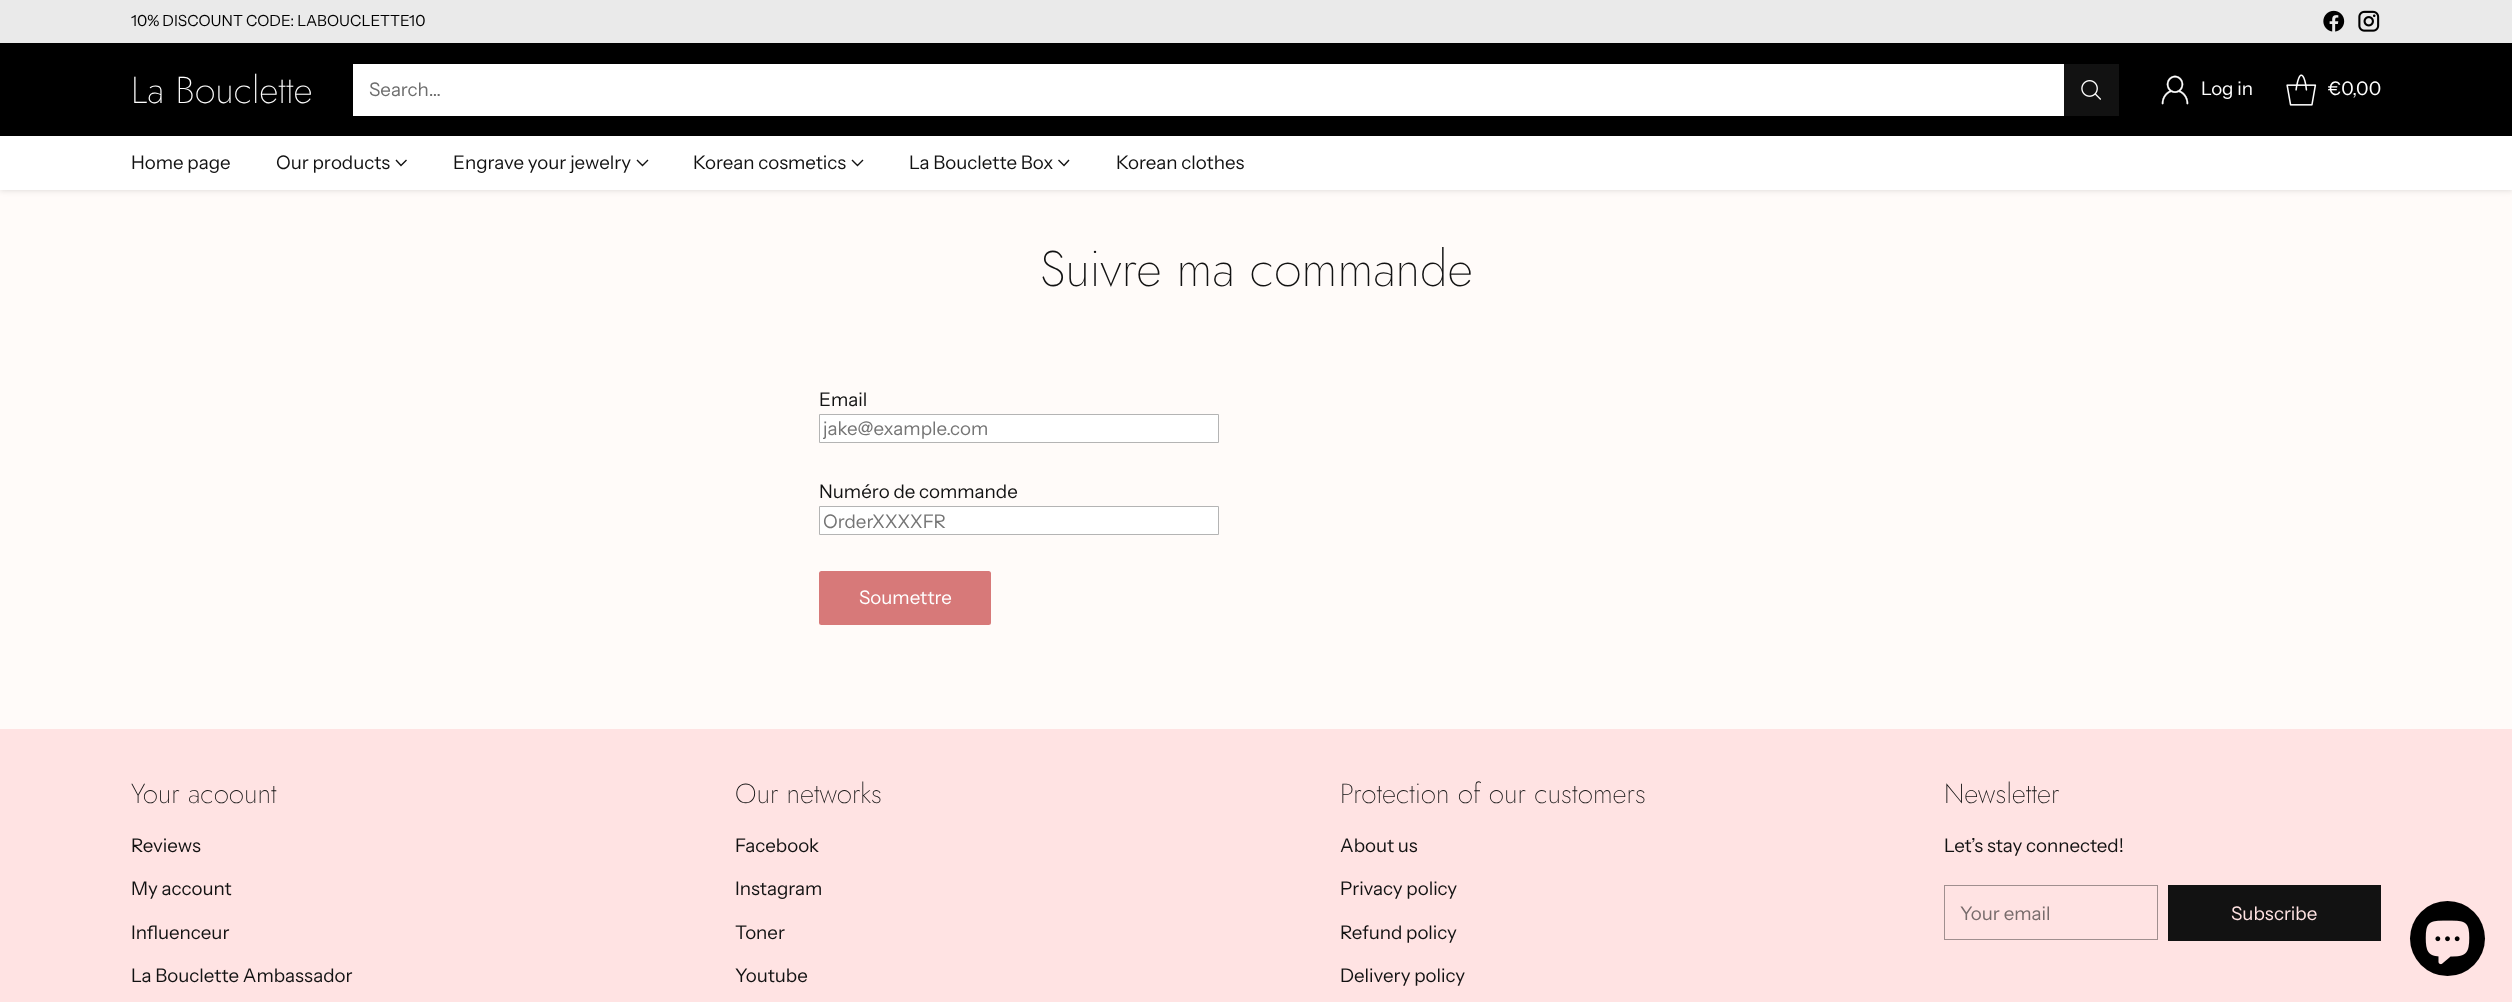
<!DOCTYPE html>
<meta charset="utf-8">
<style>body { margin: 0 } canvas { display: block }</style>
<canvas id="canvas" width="2512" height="1002"></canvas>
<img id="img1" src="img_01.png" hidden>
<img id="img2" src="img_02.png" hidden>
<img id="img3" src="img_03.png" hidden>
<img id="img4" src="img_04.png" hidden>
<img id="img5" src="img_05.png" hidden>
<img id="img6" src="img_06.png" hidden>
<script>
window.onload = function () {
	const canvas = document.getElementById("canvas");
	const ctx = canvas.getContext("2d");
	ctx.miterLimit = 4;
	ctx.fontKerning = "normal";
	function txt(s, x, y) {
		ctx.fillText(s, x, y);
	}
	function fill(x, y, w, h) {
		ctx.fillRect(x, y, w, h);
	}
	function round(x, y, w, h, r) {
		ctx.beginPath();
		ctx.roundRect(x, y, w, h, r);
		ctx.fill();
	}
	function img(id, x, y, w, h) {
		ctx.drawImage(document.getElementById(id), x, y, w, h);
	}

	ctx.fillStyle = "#FFFBF9";
	fill(0, 0, 2512, 1002);
	ctx.fillStyle = "#EAEAEA";
	fill(0, 0, 2512, 43);
	img("img1", 2323, 10, 22, 22);
	img("img2", 2358, 10, 22, 22);
	ctx.fillStyle = "rgba(0, 0, 0, 0.15)";
	ctx.filter = "blur(3px)";
	ctx.beginPath();
	ctx.rect(0, 136, 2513, 54);
	ctx.fill();
	ctx.filter = "none";
	ctx.fillStyle = "#000000";
	fill(0, 43, 2512, 93);
	ctx.strokeStyle = "#FFFFFF";
	ctx.strokeRect(353.5, 64.5, 1765, 51);
	ctx.fillStyle = "#FFFFFF";
	fill(354, 65, 1710, 50);
	ctx.fillStyle = "#121212";
	fill(2064, 64, 55, 52);
	img("img3", 2081, 80, 20, 20);
	img("img4", 2161, 75, 28, 30);
	img("img5", 2286, 74, 31, 32);
	ctx.fillStyle = "#FFFFFF";
	fill(0, 136, 2512, 54);
	ctx.beginPath();
	ctx.moveTo(396, 160);
	ctx.lineTo(401, 165.5);
	ctx.lineTo(406.5, 160);
	ctx.strokeStyle = "#121212";
	ctx.lineWidth = 1.4;
	ctx.stroke();
	ctx.beginPath();
	ctx.moveTo(637, 160);
	ctx.lineTo(642.5, 165.5);
	ctx.lineTo(648, 160);
	ctx.stroke();
	ctx.beginPath();
	ctx.moveTo(852, 160);
	ctx.lineTo(857.5, 165.5);
	ctx.lineTo(863, 160);
	ctx.stroke();
	ctx.beginPath();
	ctx.moveTo(1058.5, 160);
	ctx.lineTo(1064, 165.5);
	ctx.lineTo(1069, 160);
	ctx.stroke();
	ctx.beginPath();
	ctx.rect(819.5, 414.5, 399, 28);
	ctx.fill();
	ctx.strokeStyle = "#B4B4B4";
	ctx.lineWidth = 1;
	ctx.stroke();
	ctx.beginPath();
	ctx.rect(819.5, 506.5, 399, 28);
	ctx.fill();
	ctx.stroke();
	ctx.fillStyle = "#D77979";
	round(819, 571, 172, 54, 2.5);
	ctx.fillStyle = "#FFE3E3";
	fill(0, 729, 2512, 273);
	ctx.strokeStyle = "#A08F8F";
	ctx.strokeRect(1944.5, 885.5, 213, 54);
	ctx.fillStyle = "#121212";
	fill(2168, 885, 213, 56);
	ctx.fillStyle = "#000000";
	ctx.beginPath();
	ctx.arc(2447.5, 938.5, 37.5, 0, Math.PI * 2);
	ctx.fill();
	img("img6", 2425, 920, 45, 45);
	ctx.font = "15.4px Instrument Sans";
	txt("10% DISCOUNT CODE: LABOUCLETTE10", 131, 26);
	ctx.font = "200 37.5px Jost";
	ctx.fillStyle = "#FFFFFF";
	txt("La Bouclette", 131, 103);
	ctx.font = "18.75px Instrument Sans";
	ctx.fillStyle = "#6E6E6E";
	txt("Search…", 369, 96);
	ctx.fillStyle = "#FFFFFF";
	txt("Log in", 2201, 95);
	txt("€0,00", 2328, 95);
	ctx.fillStyle = "#121212";
	txt("Home page", 131, 169);
	txt("Our products", 276, 169);
	txt("Engrave your jewelry", 453, 169);
	txt("Korean cosmetics", 693, 169);
	txt("La Bouclette Box", 909, 169);
	txt("Korean clothes", 1116, 169);
	ctx.font = "200 50px Jost";
	txt("Suivre ma commande", 1040, 286);
	ctx.font = "18.75px Instrument Sans";
	txt("Email", 819, 406);
	ctx.save();
	ctx.beginPath();
	ctx.rect(823, 416, 392, 24);
	ctx.clip();
	ctx.fillStyle = "#757575";
	txt("jake@example.com", 823, 435);
	ctx.restore();
	txt("Numéro de commande", 819, 498);
	ctx.fillStyle = "#757575";
	txt("OrderXXXXFR", 823, 528);
	ctx.fillStyle = "#FFFFFF";
	txt("Soumettre", 859, 604);
	ctx.font = "200 27.5px Jost";
	ctx.fillStyle = "#121212";
	txt("Your acoount", 131, 803);
	ctx.font = "18.75px Instrument Sans";
	txt("Reviews", 131, 852);
	txt("My account", 131, 895);
	txt("Influenceur", 131, 939);
	txt("La Bouclette Ambassador", 131, 982);
	ctx.font = "200 27.5px Jost";
	txt("Our networks", 735, 803);
	ctx.font = "18.75px Instrument Sans";
	txt("Facebook", 735, 852);
	txt("Instagram", 735, 895);
	txt("Toner", 735, 939);
	txt("Youtube", 735, 982);
	ctx.font = "200 27.5px Jost";
	txt("Protection of our customers", 1340, 803);
	ctx.font = "18.75px Instrument Sans";
	txt("About us", 1340, 852);
	txt("Privacy policy", 1340, 895);
	txt("Refund policy", 1340, 939);
	txt("Delivery policy", 1340, 982);
	ctx.font = "200 27.5px Jost";
	txt("Newsletter", 1944, 803);
	ctx.font = "18.75px Instrument Sans";
	txt("Let’s stay connected!", 1944, 852);
	ctx.fillStyle = "#786C6C";
	txt("Your email", 1960, 920);
	ctx.fillStyle = "#FFE3E3";
	txt("Subscribe", 2231, 920);
};
</script>
